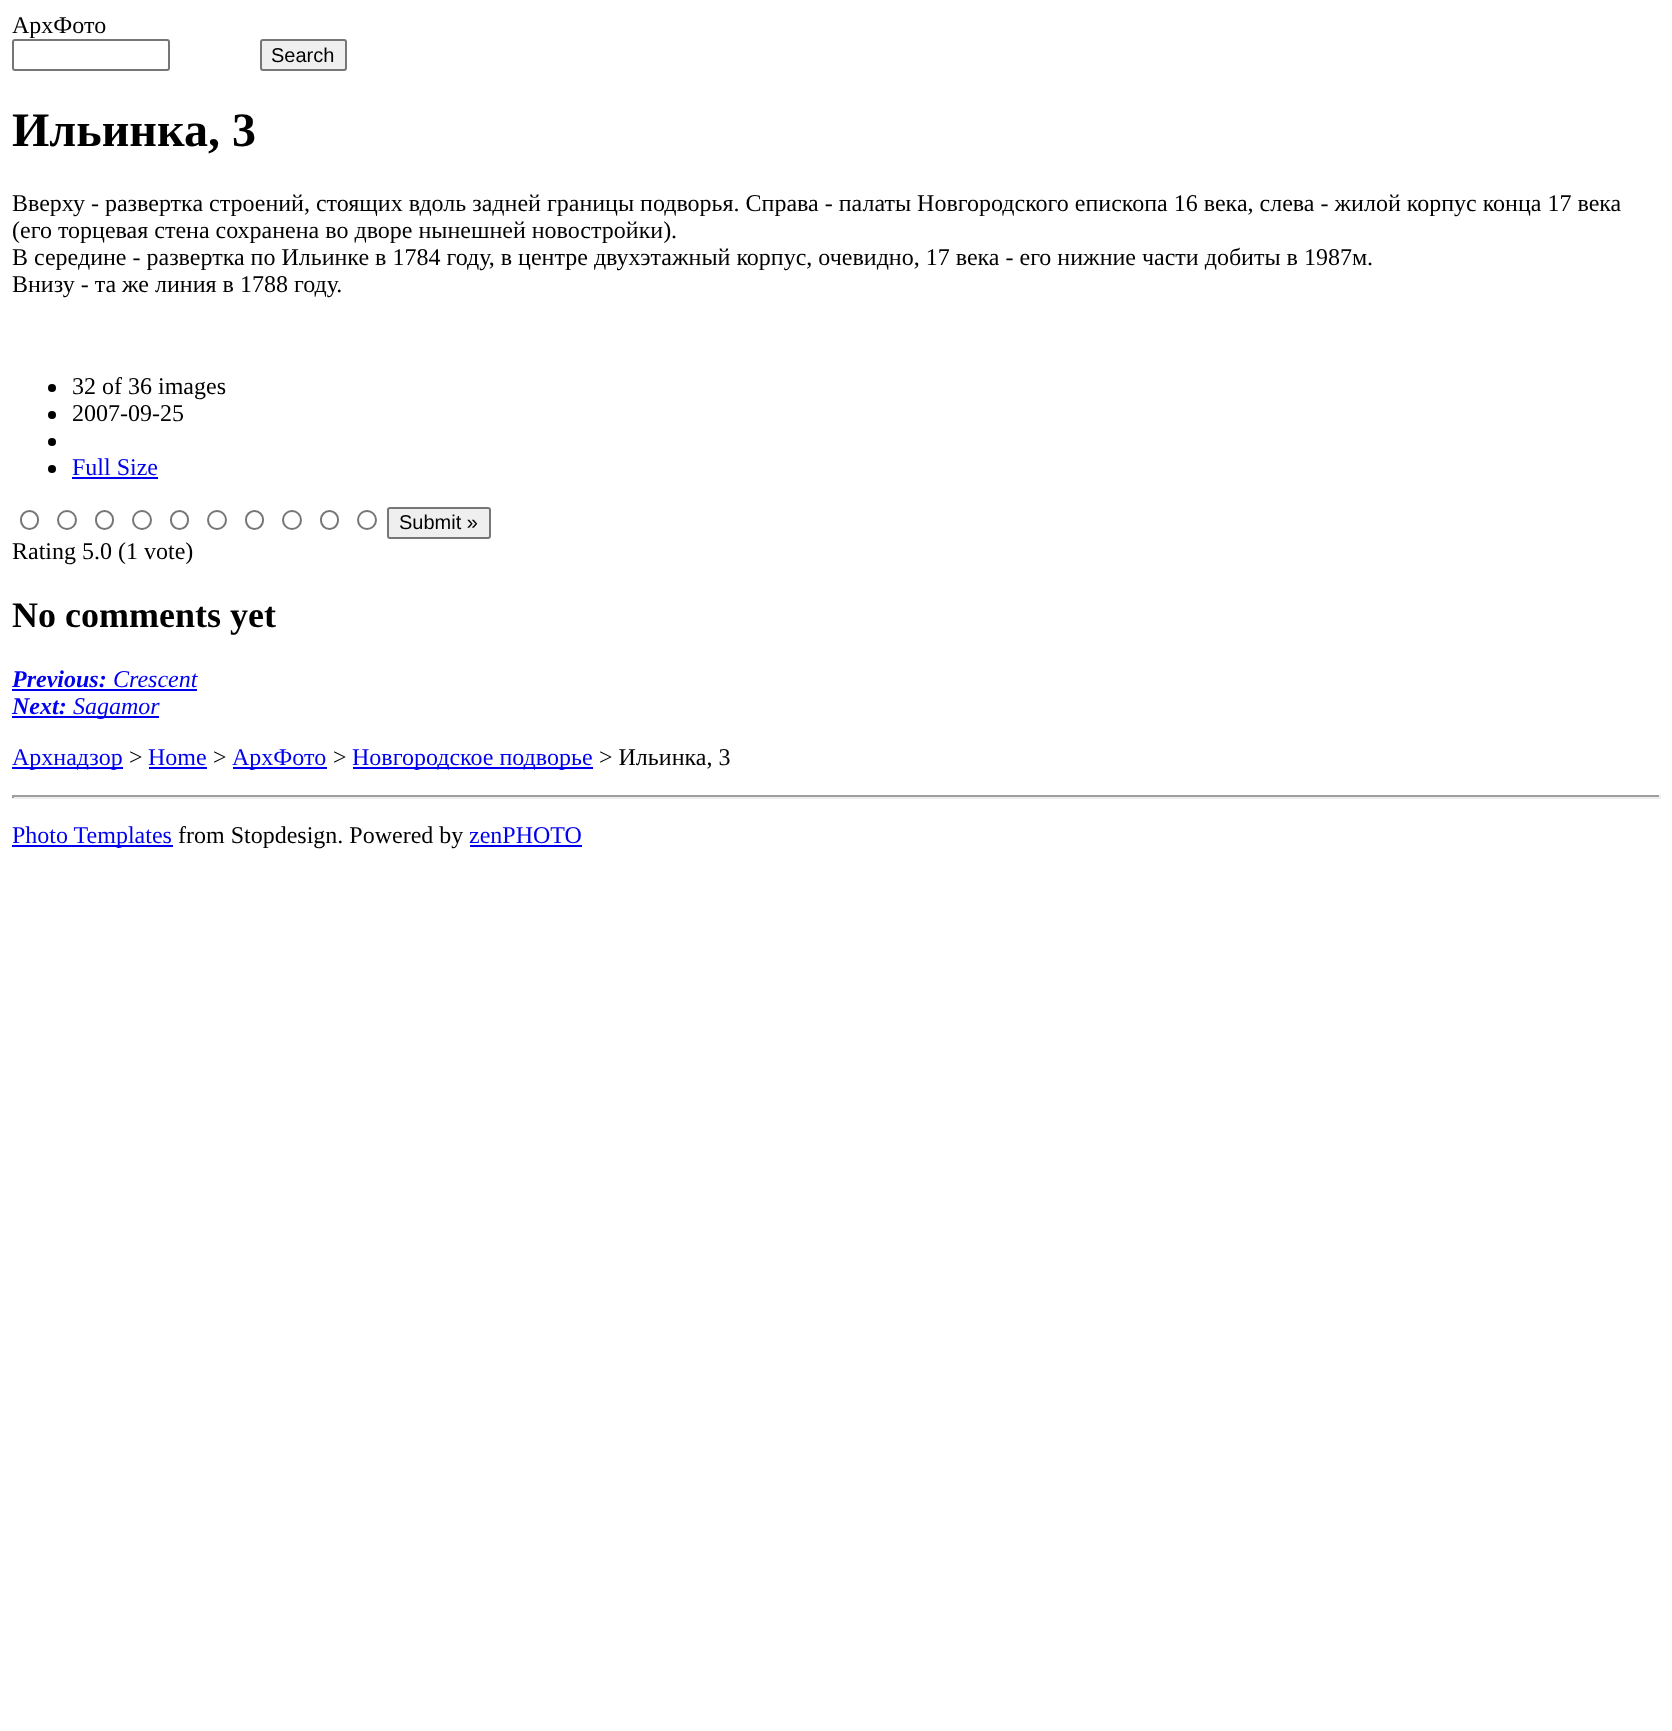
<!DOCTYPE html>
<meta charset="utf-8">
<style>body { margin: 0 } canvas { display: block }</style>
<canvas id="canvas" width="1672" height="1731"></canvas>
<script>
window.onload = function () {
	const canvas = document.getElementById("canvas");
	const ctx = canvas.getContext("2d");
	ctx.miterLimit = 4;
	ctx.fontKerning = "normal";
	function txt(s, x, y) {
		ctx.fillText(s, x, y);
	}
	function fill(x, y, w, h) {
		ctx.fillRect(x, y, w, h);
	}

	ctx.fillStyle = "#FFFFFF";
	fill(0, 0, 1672, 1731);
	ctx.beginPath();
	ctx.roundRect(13, 40, 156, 30, 2);
	ctx.strokeStyle = "#767676";
	ctx.lineWidth = 2;
	ctx.stroke();
	ctx.fillStyle = "#EFEFEF";
	ctx.beginPath();
	ctx.roundRect(261, 40, 85, 30, 2);
	ctx.fill();
	ctx.stroke();
	ctx.fillStyle = "#000000";
	ctx.beginPath();
	ctx.arc(52, 388, 4, 0, Math.PI * 2);
	ctx.fill();
	ctx.beginPath();
	ctx.arc(52, 415, 4, 0, Math.PI * 2);
	ctx.fill();
	ctx.beginPath();
	ctx.arc(52, 442, 4, 0, Math.PI * 2);
	ctx.fill();
	ctx.beginPath();
	ctx.arc(52, 469, 4, 0, Math.PI * 2);
	ctx.fill();
	ctx.fillStyle = "#0000EE";
	fill(72, 477, 86, 2);
	ctx.beginPath();
	ctx.roundRect(21, 511, 17, 18, 8.5);
	ctx.stroke();
	ctx.beginPath();
	ctx.arc(67, 520, 9, 0, Math.PI * 2);
	ctx.stroke();
	ctx.beginPath();
	ctx.roundRect(96, 511, 17, 18, 8.5);
	ctx.stroke();
	ctx.beginPath();
	ctx.arc(142, 520, 9, 0, Math.PI * 2);
	ctx.stroke();
	ctx.beginPath();
	ctx.roundRect(171, 511, 17, 18, 8.5);
	ctx.stroke();
	ctx.beginPath();
	ctx.arc(217, 520, 9, 0, Math.PI * 2);
	ctx.stroke();
	ctx.beginPath();
	ctx.roundRect(246, 511, 17, 18, 8.5);
	ctx.stroke();
	ctx.beginPath();
	ctx.arc(292, 520, 9, 0, Math.PI * 2);
	ctx.stroke();
	ctx.beginPath();
	ctx.roundRect(321, 511, 17, 18, 8.5);
	ctx.stroke();
	ctx.beginPath();
	ctx.arc(367, 520, 9, 0, Math.PI * 2);
	ctx.stroke();
	ctx.fillStyle = "#EFEFEF";
	ctx.beginPath();
	ctx.roundRect(388, 508, 102, 30, 2);
	ctx.fill();
	ctx.stroke();
	ctx.fillStyle = "#0000EE";
	fill(12, 689, 185, 2);
	fill(12, 716, 147, 2);
	fill(12, 767, 111, 2);
	fill(149, 767, 58, 2);
	fill(233, 767, 94, 2);
	fill(353, 767, 240, 2);
	ctx.fillStyle = "#9F9F9F";
	fill(12, 795, 1649, 2);
	ctx.fillStyle = "#EEEEEE";
	fill(1659, 795, 2, 3);
	fill(12, 797, 1649, 2);
	ctx.fillStyle = "#9F9F9F";
	fill(12, 795, 2, 3);
	ctx.fillStyle = "#0000EE";
	fill(12, 845, 161, 2);
	fill(470, 845, 112, 2);
	ctx.font = "24px Liberation Serif";
	ctx.fillStyle = "#000000";
	txt("АрхФото", 12, 33);
	ctx.font = "20px Liberation Sans";
	txt("Search", 271, 62);
	ctx.font = "bold 48px Liberation Serif";
	txt("Ильинка, 3", 12, 146);
	ctx.font = "24px Liberation Serif";
	txt("Вверху - развертка строений, стоящих вдоль задней границы подворья. Справа - палаты Новгородского епископа 16 века, слева - жилой корпус конца 17 века", 12, 211);
	txt("(его торцевая стена сохранена во дворе нынешней новостройки).", 12, 238);
	txt("В середине - развертка по Ильинке в 1784 году, в центре двухэтажный корпус, очевидно, 17 века - его нижние части добиты в 1987м.", 12, 265);
	txt("Внизу - та же линия в 1788 году.", 12, 292);
	txt("32 of 36 images", 72, 394);
	txt("2007-09-25", 72, 421);
	ctx.fillStyle = "#0000EE";
	txt("Full Size", 72, 475);
	ctx.font = "20px Liberation Sans";
	ctx.fillStyle = "#000000";
	txt("Submit »", 399, 529);
	ctx.font = "24px Liberation Serif";
	txt("Rating 5.0 (1 vote)", 12, 559);
	ctx.font = "bold 36px Liberation Serif";
	txt("No comments yet", 12, 627);
	ctx.font = "italic bold 24px Liberation Serif";
	ctx.fillStyle = "#0000EE";
	txt("Previous:", 12, 687);
	ctx.font = "italic 24px Liberation Serif";
	txt("Crescent", 113, 687);
	ctx.font = "italic bold 24px Liberation Serif";
	txt("Next:", 12, 714);
	ctx.font = "italic 24px Liberation Serif";
	txt("Sagamor", 73, 714);
	ctx.font = "24px Liberation Serif";
	txt("Архнадзор", 12, 765);
	ctx.fillStyle = "#000000";
	txt(">", 129, 765);
	ctx.fillStyle = "#0000EE";
	txt("Home", 148, 765);
	ctx.fillStyle = "#000000";
	txt(">", 213, 765);
	ctx.fillStyle = "#0000EE";
	txt("АрхФото", 232, 765);
	ctx.fillStyle = "#000000";
	txt(">", 333, 765);
	ctx.fillStyle = "#0000EE";
	txt("Новгородское подворье", 352, 765);
	ctx.fillStyle = "#000000";
	txt("> Ильинка, 3", 599, 765);
	ctx.fillStyle = "#0000EE";
	txt("Photo Templates", 12, 843);
	ctx.fillStyle = "#000000";
	txt("from Stopdesign. Powered by", 178, 843);
	ctx.fillStyle = "#0000EE";
	txt("zenPHOTO", 469, 843);
};
</script>
